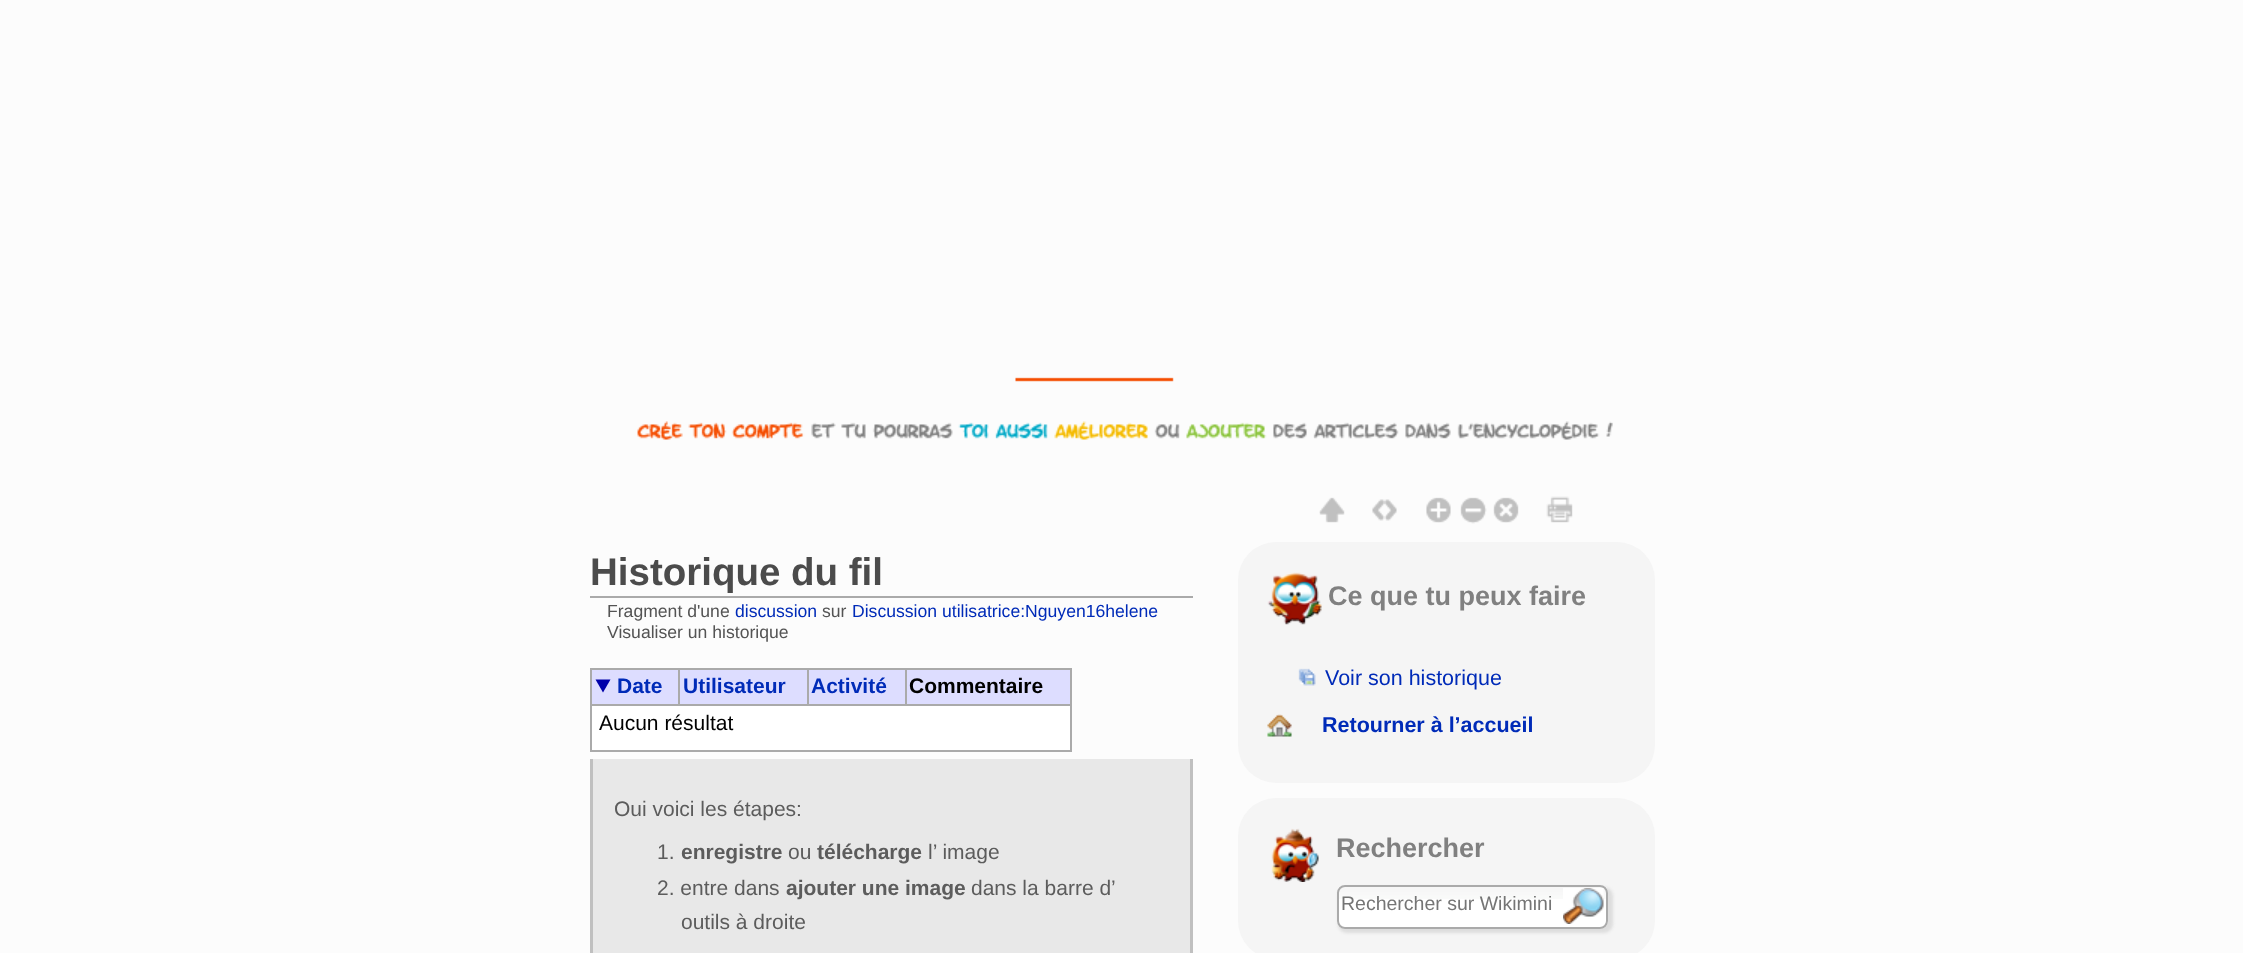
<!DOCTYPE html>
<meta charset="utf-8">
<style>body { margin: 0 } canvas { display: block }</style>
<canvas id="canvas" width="2243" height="953"></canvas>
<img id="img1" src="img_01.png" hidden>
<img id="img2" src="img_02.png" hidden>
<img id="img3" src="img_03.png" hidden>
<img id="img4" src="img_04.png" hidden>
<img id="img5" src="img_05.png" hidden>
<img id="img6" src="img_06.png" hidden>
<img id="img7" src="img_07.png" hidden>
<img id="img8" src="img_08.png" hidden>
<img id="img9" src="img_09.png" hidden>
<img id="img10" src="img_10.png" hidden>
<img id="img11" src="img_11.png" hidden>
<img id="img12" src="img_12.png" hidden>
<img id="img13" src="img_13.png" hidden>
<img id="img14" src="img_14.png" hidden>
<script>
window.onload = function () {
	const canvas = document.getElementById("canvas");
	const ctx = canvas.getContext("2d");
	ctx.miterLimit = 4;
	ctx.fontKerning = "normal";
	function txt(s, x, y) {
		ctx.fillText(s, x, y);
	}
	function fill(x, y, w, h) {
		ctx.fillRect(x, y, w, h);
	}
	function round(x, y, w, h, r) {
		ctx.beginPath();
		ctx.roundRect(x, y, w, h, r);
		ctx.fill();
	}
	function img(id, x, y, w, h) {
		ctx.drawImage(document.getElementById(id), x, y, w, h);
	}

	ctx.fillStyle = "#FCFCFC";
	fill(0, 0, 2243, 953);
	img("img1", 1015, 377, 159, 5);
	img("img2", 637, 421, 976, 19);
	ctx.fillStyle = "#AAAAAA";
	fill(590, 596, 603, 2);
	fill(590, 668, 481, 2);
	fill(1070, 668, 2, 84);
	fill(590, 750, 481, 2);
	fill(590, 668, 2, 84);
	ctx.fillStyle = "#DDDDFF";
	fill(592, 670, 86, 34);
	ctx.fillStyle = "#0000AA";
	ctx.beginPath();
	ctx.moveTo(595.5, 679.5);
	ctx.lineTo(610.5, 679.5);
	ctx.lineTo(603, 692.5);
	ctx.closePath();
	ctx.fill();
	ctx.fillStyle = "#DDDDFF";
	fill(680, 670, 127, 34);
	ctx.fillStyle = "#AAAAAA";
	fill(590, 704, 481, 2);
	fill(678, 668, 2, 37);
	ctx.fillStyle = "#DDDDFF";
	fill(809, 670, 96, 34);
	ctx.fillStyle = "#AAAAAA";
	fill(807, 668, 2, 37);
	ctx.fillStyle = "#DDDDFF";
	fill(907, 670, 163, 34);
	ctx.fillStyle = "#AAAAAA";
	fill(905, 668, 2, 37);
	ctx.fillStyle = "#FFFFFF";
	fill(592, 706, 478, 44);
	ctx.fillStyle = "#E8E8E8";
	fill(593, 759, 597, 194);
	ctx.fillStyle = "#C0C0C0";
	fill(1190, 759, 3, 194);
	fill(590, 759, 3, 194);
	img("img3", 1319, 497, 26, 26);
	img("img4", 1372, 499, 25, 22);
	img("img5", 1426, 497, 25, 26);
	img("img6", 1460, 497, 27, 27);
	img("img7", 1493, 497, 26, 26);
	img("img8", 1546, 496, 27, 27);
	ctx.fillStyle = "#F5F5F5";
	round(1238, 542, 417, 241, 38);
	img("img9", 1267, 572, 55, 53);
	img("img10", 1298, 668, 18, 18);
	img("img11", 1267, 714, 25, 23);
	round(1238, 798, 417, 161, 38);
	img("img12", 1271, 828, 48, 54);
	ctx.fillStyle = "#DDDDDD";
	ctx.filter = "blur(1.5px)";
	ctx.beginPath();
	ctx.roundRect(1338, 887, 275, 46, 9);
	ctx.fill();
	ctx.filter = "none";
	ctx.fillStyle = "#FFFFFF";
	round(1337, 885, 271, 44, 8);
	img("img13", 1337, 886, 271, 13);
	ctx.beginPath();
	ctx.roundRect(1338, 886, 269, 42, 7);
	ctx.strokeStyle = "#AAAAAA";
	ctx.lineWidth = 2;
	ctx.stroke();
	img("img14", 1563, 888, 41, 36);
	ctx.font = "bold 38.5px Liberation Sans";
	ctx.fillStyle = "#4B4B4B";
	txt("Historique du fil", 590, 585);
	ctx.font = "17.6px Liberation Sans";
	ctx.fillStyle = "#545454";
	txt("Fragment d'une", 607, 617);
	ctx.fillStyle = "#002BB8";
	txt("discussion", 735, 617);
	ctx.fillStyle = "#545454";
	txt("sur", 822, 617);
	ctx.fillStyle = "#002BB8";
	txt("Discussion utilisatrice:Nguyen16helene", 852, 617);
	ctx.fillStyle = "#545454";
	txt("Visualiser un historique", 607, 638);
	ctx.font = "bold 21px Liberation Sans";
	ctx.fillStyle = "#002BB8";
	txt("Date", 617, 693);
	txt("Utilisateur", 683, 693);
	txt("Activité", 811, 693);
	ctx.fillStyle = "#000000";
	txt("Commentaire", 909, 693);
	ctx.font = "21px Liberation Sans";
	txt("Aucun résultat", 599, 730);
	ctx.fillStyle = "#5C5C5C";
	txt("Oui voici les étapes:", 614, 816);
	txt("1.", 657, 859);
	ctx.font = "bold 21px Liberation Sans";
	txt("enregistre", 681, 859);
	ctx.font = "21px Liberation Sans";
	txt("ou", 788, 859);
	ctx.font = "bold 21px Liberation Sans";
	txt("télécharge", 817, 859);
	ctx.font = "21px Liberation Sans";
	txt("l’ image", 928, 859);
	txt("2. entre dans", 657, 895);
	ctx.font = "bold 21px Liberation Sans";
	txt("ajouter une image", 786, 895);
	ctx.font = "21px Liberation Sans";
	txt("dans la barre d’", 971, 895);
	txt("outils à droite", 681, 929);
	ctx.font = "bold 27px Liberation Sans";
	ctx.fillStyle = "#808080";
	txt("Ce que tu peux faire", 1328, 605);
	ctx.font = "21.5px Liberation Sans";
	ctx.fillStyle = "#002BB8";
	txt("Voir son historique", 1325, 685);
	ctx.font = "bold 21.5px Liberation Sans";
	txt("Retourner à l’accueil", 1322, 732);
	ctx.font = "bold 27px Liberation Sans";
	ctx.fillStyle = "#808080";
	txt("Rechercher", 1336, 857);
	ctx.font = "19.5px Liberation Sans";
	ctx.fillStyle = "#757575";
	txt("Rechercher sur Wikimini", 1341, 910);
};
</script>
